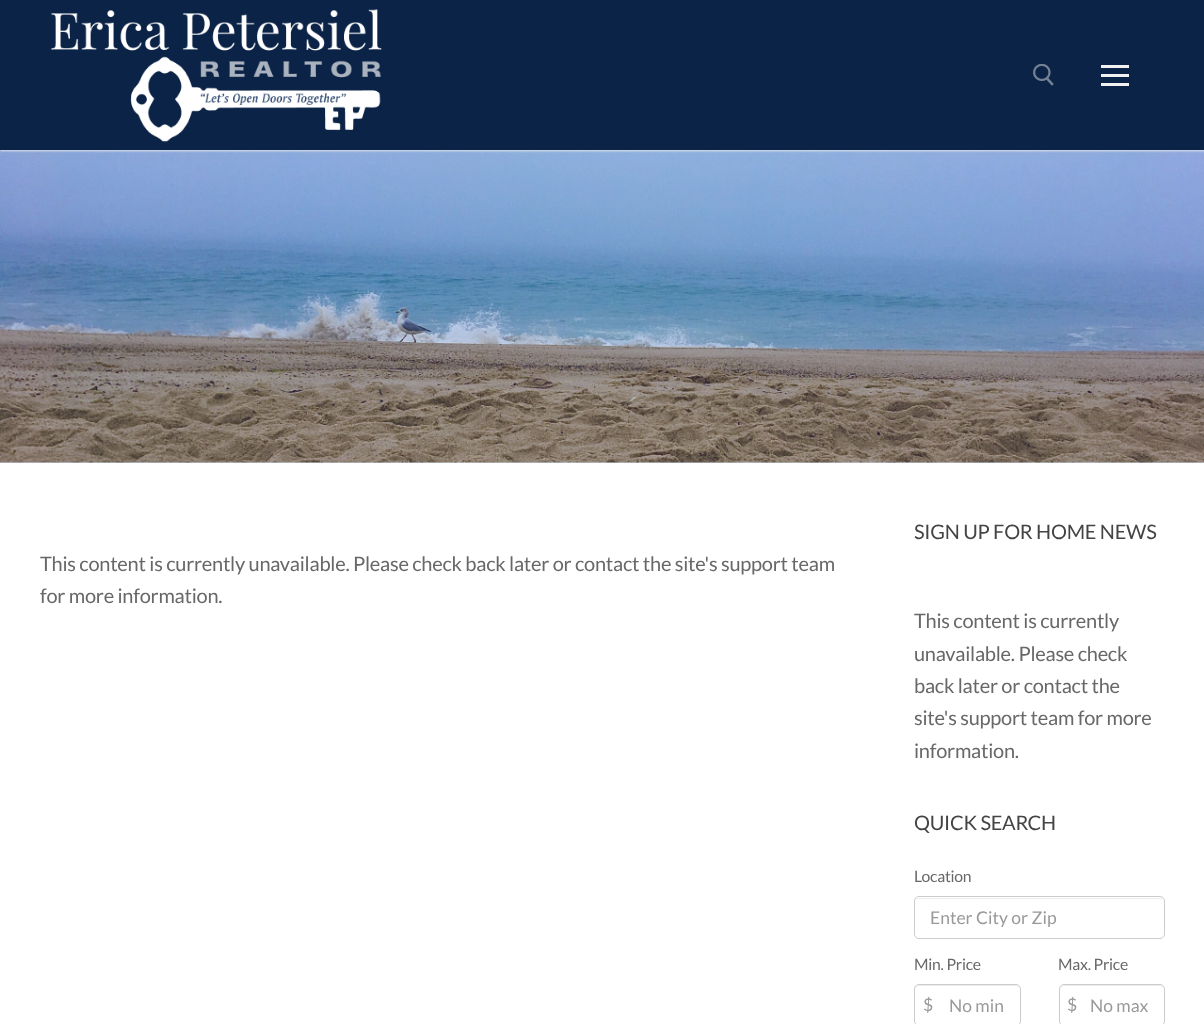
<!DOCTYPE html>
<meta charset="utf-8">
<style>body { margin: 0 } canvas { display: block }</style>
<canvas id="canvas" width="1204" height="1024"></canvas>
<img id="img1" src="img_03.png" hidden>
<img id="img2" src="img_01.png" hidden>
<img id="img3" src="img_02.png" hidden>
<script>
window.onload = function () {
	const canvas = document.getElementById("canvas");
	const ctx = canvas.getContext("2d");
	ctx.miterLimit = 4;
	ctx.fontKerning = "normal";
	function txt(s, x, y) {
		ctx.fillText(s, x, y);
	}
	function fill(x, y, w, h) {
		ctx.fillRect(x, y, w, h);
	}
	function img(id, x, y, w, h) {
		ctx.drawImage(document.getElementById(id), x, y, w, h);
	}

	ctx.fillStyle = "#C7D6EC";
	fill(0, 0, 1204, 1024);
	img("img1", 0, 150, 1204, 313);
	ctx.fillStyle = "#E1E5EA";
	ctx.filter = "blur(1px)";
	ctx.beginPath();
	ctx.rect(0, 1, 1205, 150);
	ctx.fill();
	ctx.filter = "none";
	ctx.fillStyle = "#0B2346";
	fill(0, 0, 1204, 150);
	img("img2", 51, 9, 331, 133);
	img("img3", 1033, 64, 21, 22);
	ctx.fillStyle = "#F2F2F2";
	fill(1101, 74, 28, 3);
	fill(1101, 65, 28, 3);
	fill(1101, 83, 28, 3);
	ctx.fillStyle = "#FFFFFF";
	fill(0, 463, 1204, 561);
	ctx.fillStyle = "#ECECEC";
	ctx.beginPath();
	ctx.moveTo(919, 899);
	ctx.lineTo(1160, 899);
	ctx.bezierCurveTo(1162, 899, 1164, 900, 1164, 902);
	ctx.bezierCurveTo(1164, 900, 1162, 898, 1160, 898);
	ctx.lineTo(919, 898);
	ctx.bezierCurveTo(917, 898, 915, 900, 915, 902);
	ctx.bezierCurveTo(915, 900, 917, 899, 919, 899);
	ctx.closePath();
	ctx.fill();
	ctx.beginPath();
	ctx.roundRect(914.5, 896.5, 250, 42, 4.5);
	ctx.strokeStyle = "#CCCCCC";
	ctx.stroke();
	ctx.beginPath();
	ctx.moveTo(919, 986);
	ctx.lineTo(1016, 986);
	ctx.bezierCurveTo(1018, 986, 1020, 988, 1020, 990);
	ctx.bezierCurveTo(1020, 981, 1004, 985, 1000, 985);
	ctx.lineTo(935, 985);
	ctx.bezierCurveTo(931, 985, 915, 981, 915, 990);
	ctx.bezierCurveTo(915, 988, 917, 986, 919, 986);
	ctx.closePath();
	ctx.fill();
	ctx.beginPath();
	ctx.roundRect(914.5, 984.5, 106, 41, 4.5);
	ctx.stroke();
	ctx.beginPath();
	ctx.moveTo(1064, 986);
	ctx.lineTo(1160, 986);
	ctx.bezierCurveTo(1162, 986, 1164, 988, 1164, 990);
	ctx.bezierCurveTo(1164, 981, 1148, 985, 1144, 985);
	ctx.lineTo(1080, 985);
	ctx.bezierCurveTo(1076, 985, 1060, 981, 1060, 990);
	ctx.bezierCurveTo(1060, 988, 1062, 986, 1064, 986);
	ctx.closePath();
	ctx.fill();
	ctx.beginPath();
	ctx.roundRect(1059.5, 984.5, 105, 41, 4.5);
	ctx.stroke();
	ctx.letterSpacing = "-0.25px";
	ctx.font = "20px Lato";
	ctx.fillStyle = "#686868";
	txt("This content is currently unavailable. Please check back later or contact the site's support team", 40, 571);
	txt("for more information.", 40, 603);
	ctx.fillStyle = "#444444";
	txt("SIGN UP FOR HOME NEWS", 914, 539);
	ctx.fillStyle = "#686868";
	txt("This content is currently", 914, 628);
	txt("unavailable. Please check", 914, 661);
	txt("back later or contact the", 914, 693);
	txt("site's support team for more", 914, 725);
	txt("information.", 914, 758);
	ctx.fillStyle = "#444444";
	txt("QUICK SEARCH", 914, 830);
	ctx.font = "15.75px Lato";
	ctx.fillStyle = "#686868";
	txt("Location", 914, 882);
	ctx.letterSpacing = "0px";
	ctx.font = "17.5px Lato";
	ctx.fillStyle = "#999999";
	txt("Enter City or Zip", 930, 924);
	ctx.letterSpacing = "-0.25px";
	ctx.font = "15.75px Lato";
	ctx.fillStyle = "#686868";
	txt("Min. Price", 914, 970);
	ctx.font = "17.5px Lato";
	ctx.fillStyle = "#999999";
	txt("$", 923, 1011);
	ctx.letterSpacing = "0px";
	txt("No min", 949, 1012);
	ctx.letterSpacing = "-0.25px";
	ctx.font = "15.75px Lato";
	ctx.fillStyle = "#686868";
	txt("Max. Price", 1058, 970);
	ctx.font = "17.5px Lato";
	ctx.fillStyle = "#999999";
	txt("$", 1067, 1011);
	ctx.letterSpacing = "0px";
	txt("No max", 1090, 1012);
};
</script>
